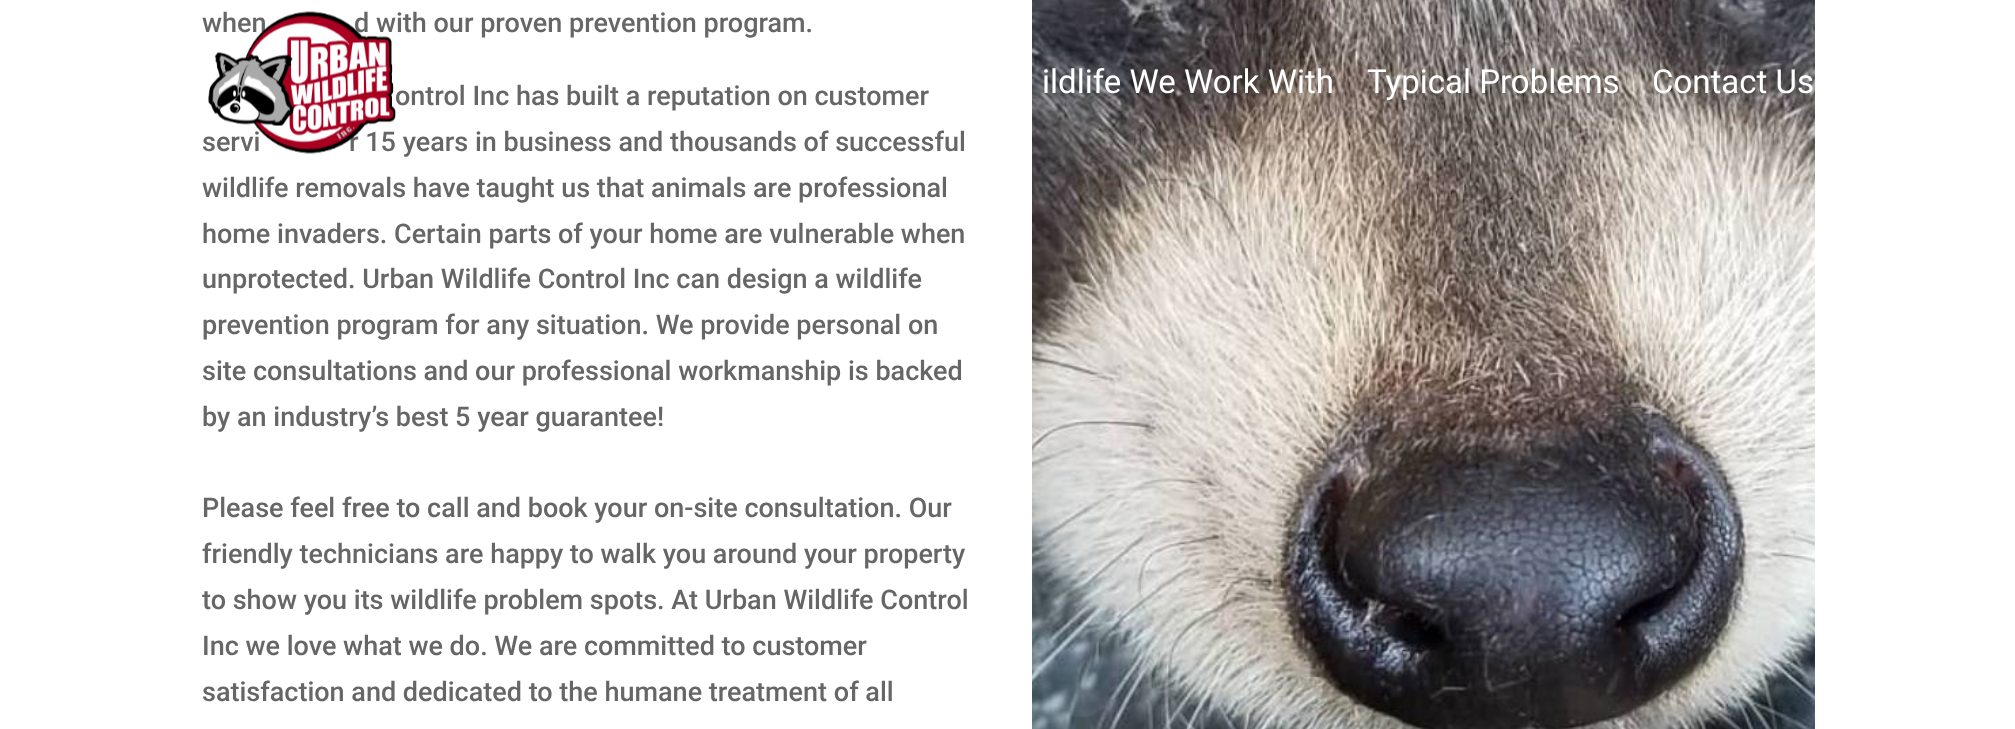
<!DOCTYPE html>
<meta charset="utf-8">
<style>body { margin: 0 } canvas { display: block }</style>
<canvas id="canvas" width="2015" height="729"></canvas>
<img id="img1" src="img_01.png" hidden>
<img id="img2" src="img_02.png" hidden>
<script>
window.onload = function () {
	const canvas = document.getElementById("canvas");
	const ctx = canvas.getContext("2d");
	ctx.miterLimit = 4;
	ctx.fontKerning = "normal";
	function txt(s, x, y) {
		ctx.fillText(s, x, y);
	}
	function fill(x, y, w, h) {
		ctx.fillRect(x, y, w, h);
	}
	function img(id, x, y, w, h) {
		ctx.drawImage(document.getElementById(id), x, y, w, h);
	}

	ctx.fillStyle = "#FFFFFF";
	fill(0, 0, 2015, 729);
	img("img1", 1032, 0, 783, 729);
	ctx.font = "500 27px Roboto";
	ctx.fillStyle = "#666666";
	txt("when", 202, 32);
	txt("d with our proven prevention program.", 354, 32);
	txt("ontrol Inc has built a reputation on customer", 395, 105);
	txt("servi", 202, 151);
	txt("r 15 years in business and thousands of successful", 349, 151);
	txt("wildlife removals have taught us that animals are professional", 202, 197);
	txt("home invaders. Certain parts of your home are vulnerable when", 202, 243);
	txt("unprotected. Urban Wildlife Control Inc can design a wildlife", 202, 288);
	txt("prevention program for any situation. We provide personal on", 202, 334);
	txt("site consultations and our professional workmanship is backed", 202, 380);
	txt("by an industry’s best 5 year guarantee!", 202, 426);
	txt("Please feel free to call and book your on-site consultation. Our", 202, 517);
	txt("friendly technicians are happy to walk you around your property", 202, 563);
	txt("to show you its wildlife problem spots. At Urban Wildlife Control", 202, 609);
	txt("Inc we love what we do. We are committed to customer", 202, 655);
	txt("satisfaction and dedicated to the humane treatment of all", 202, 701);
	img("img2", 208, 11, 188, 143);
	ctx.font = "33px Roboto";
	ctx.fillStyle = "#FFFFFF";
	txt("ildlife We Work With", 1042, 93);
	txt("Typical Problems", 1367, 93);
	txt("Contact Us", 1652, 93);
};
</script>
